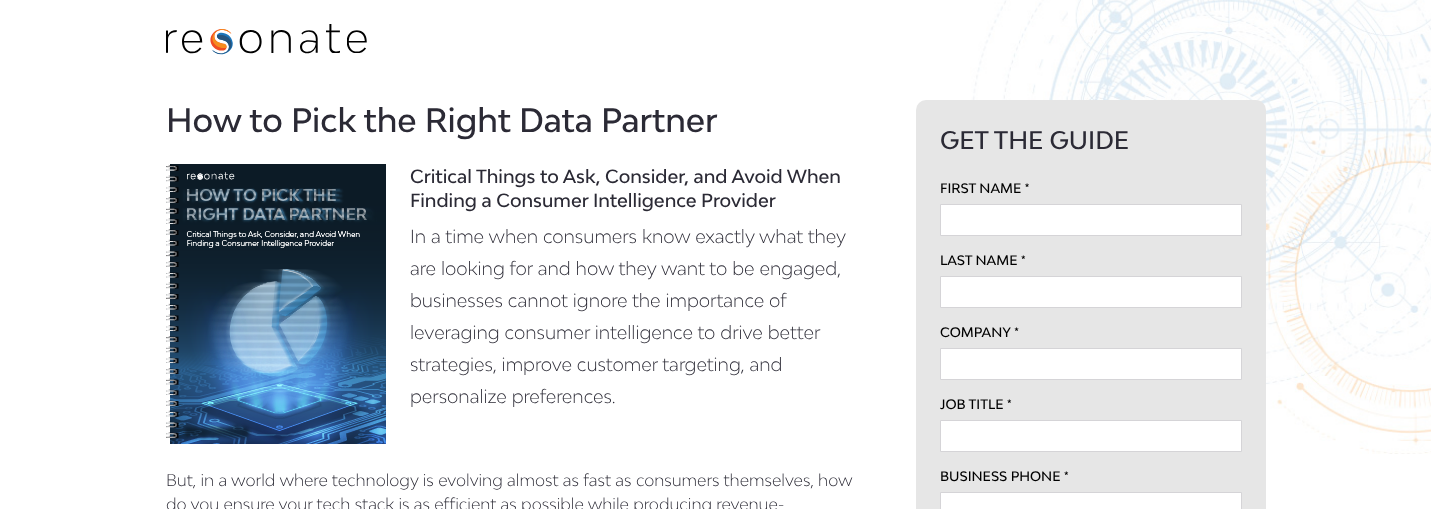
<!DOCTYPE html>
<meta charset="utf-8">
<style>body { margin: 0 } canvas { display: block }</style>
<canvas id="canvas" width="1431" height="509"></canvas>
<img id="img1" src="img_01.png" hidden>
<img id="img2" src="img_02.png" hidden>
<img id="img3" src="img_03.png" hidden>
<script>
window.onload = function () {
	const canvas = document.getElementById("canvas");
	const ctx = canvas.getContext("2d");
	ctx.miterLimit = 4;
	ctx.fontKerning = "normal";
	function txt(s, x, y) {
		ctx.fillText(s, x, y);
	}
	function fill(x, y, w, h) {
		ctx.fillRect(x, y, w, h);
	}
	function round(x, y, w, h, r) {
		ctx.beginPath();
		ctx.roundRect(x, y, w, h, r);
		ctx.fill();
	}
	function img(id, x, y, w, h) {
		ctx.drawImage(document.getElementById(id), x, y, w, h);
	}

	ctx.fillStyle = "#FFFFFF";
	fill(0, 0, 1431, 509);
	img("img1", 166, 24, 201, 31);
	img("img2", 166, 164, 220, 280);
	img("img3", 954, 0, 477, 454);
	ctx.fillStyle = "#E6E6E6";
	round(916, 100, 350, 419, 10);
	ctx.fillStyle = "#FFFFFF";
	ctx.beginPath();
	ctx.rect(940.5, 204.5, 301, 31);
	ctx.fill();
	ctx.strokeStyle = "#D5D4D7";
	ctx.stroke();
	ctx.beginPath();
	ctx.rect(940.5, 276.5, 301, 31);
	ctx.fill();
	ctx.stroke();
	ctx.beginPath();
	ctx.rect(940.5, 348.5, 301, 31);
	ctx.fill();
	ctx.stroke();
	ctx.beginPath();
	ctx.rect(940.5, 420.5, 301, 31);
	ctx.fill();
	ctx.stroke();
	ctx.beginPath();
	ctx.rect(940.5, 492.5, 301, 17);
	ctx.fill();
	ctx.stroke();
	ctx.font = "500 32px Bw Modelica";
	ctx.fillStyle = "#2B2A35";
	txt("How to Pick the Right Data Partner", 166, 132);
	ctx.font = "500 18px Bw Modelica";
	txt("Critical Things to Ask, Consider, and Avoid When", 410, 183);
	txt("Finding a Consumer Intelligence Provider", 410, 207);
	ctx.font = "300 18px Bw Modelica";
	txt("In a time when consumers know exactly what they", 410, 243);
	txt("are looking for and how they want to be engaged,", 410, 275);
	txt("businesses cannot ignore the importance of", 410, 307);
	txt("leveraging consumer intelligence to drive better", 410, 339);
	txt("strategies, improve customer targeting, and", 410, 371);
	txt("personalize preferences.", 410, 403);
	ctx.font = "300 16px Bw Modelica";
	txt("But, in a world where technology is evolving almost as fast as consumers themselves, how", 166, 486);
	txt("do you ensure your tech stack is as efficient as possible while producing revenue-", 166, 510);
	ctx.font = "500 24px Bw Modelica";
	txt("GET THE GUIDE", 940, 149);
	ctx.font = "500 13px Bw Modelica";
	ctx.fillStyle = "#000000";
	txt("FIRST NAME *", 940, 193);
	txt("LAST NAME *", 940, 265);
	txt("COMPANY *", 940, 337);
	txt("JOB TITLE *", 940, 409);
	txt("BUSINESS PHONE *", 940, 481);
};
</script>
